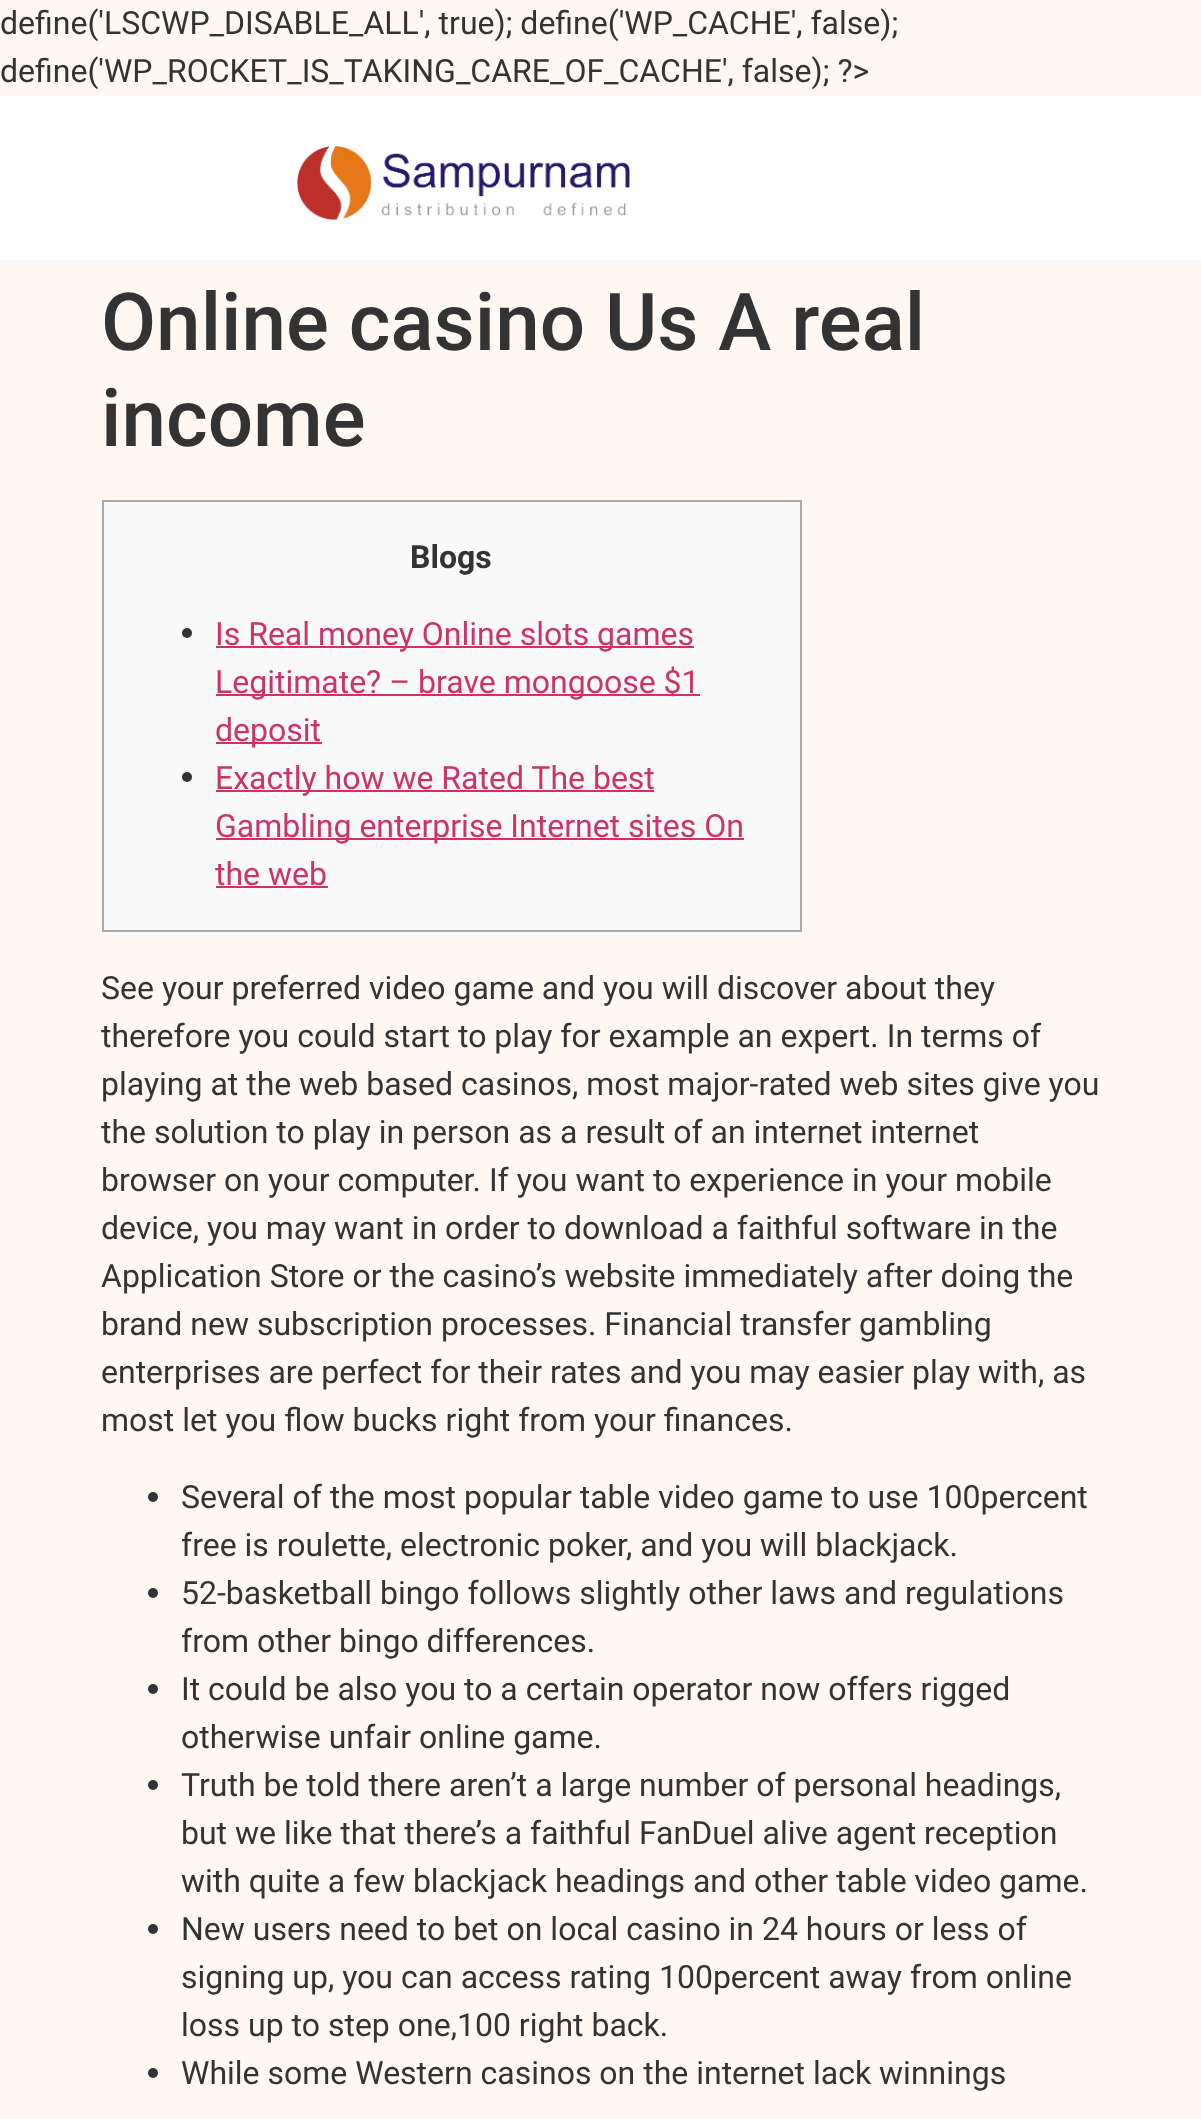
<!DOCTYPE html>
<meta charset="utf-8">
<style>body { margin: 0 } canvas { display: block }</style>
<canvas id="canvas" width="1201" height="2119"></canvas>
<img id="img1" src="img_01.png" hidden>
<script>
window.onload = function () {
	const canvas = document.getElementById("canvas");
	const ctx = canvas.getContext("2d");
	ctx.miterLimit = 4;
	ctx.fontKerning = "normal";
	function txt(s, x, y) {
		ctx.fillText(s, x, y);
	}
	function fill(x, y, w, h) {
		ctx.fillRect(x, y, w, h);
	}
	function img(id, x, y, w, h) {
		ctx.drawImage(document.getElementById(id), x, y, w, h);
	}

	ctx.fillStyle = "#FFF8F2";
	fill(0, 0, 1201, 2119);
	ctx.fillStyle = "#FFFFFF";
	fill(0, 96, 1201, 164);
	img("img1", 297, 146, 333, 74);
	ctx.fillStyle = "#F9F9F9";
	ctx.beginPath();
	ctx.rect(103, 501, 698, 430);
	ctx.fill();
	ctx.strokeStyle = "#AAAAAA";
	ctx.lineWidth = 2;
	ctx.stroke();
	ctx.fillStyle = "#333333";
	ctx.beginPath();
	ctx.arc(187, 633, 5, 0, Math.PI * 2);
	ctx.fill();
	ctx.fillStyle = "#CC3366";
	fill(216, 646, 478, 2);
	fill(216, 694, 484, 2);
	fill(216, 742, 106, 2);
	ctx.fillStyle = "#333333";
	ctx.beginPath();
	ctx.arc(187, 777, 5, 0, Math.PI * 2);
	ctx.fill();
	ctx.fillStyle = "#CC3366";
	fill(216, 790, 438, 2);
	fill(216, 838, 528, 2);
	fill(216, 886, 112, 2);
	ctx.fillStyle = "#333333";
	ctx.beginPath();
	ctx.arc(153, 1497, 5, 0, Math.PI * 2);
	ctx.fill();
	ctx.beginPath();
	ctx.arc(153, 1593, 5, 0, Math.PI * 2);
	ctx.fill();
	ctx.beginPath();
	ctx.arc(153, 1689, 5, 0, Math.PI * 2);
	ctx.fill();
	ctx.beginPath();
	ctx.arc(153, 1785, 5, 0, Math.PI * 2);
	ctx.fill();
	ctx.beginPath();
	ctx.arc(153, 1929, 5, 0, Math.PI * 2);
	ctx.fill();
	ctx.beginPath();
	ctx.arc(153, 2073, 5, 0, Math.PI * 2);
	ctx.fill();
	ctx.font = "32px Roboto";
	txt("define('LSCWP_DISABLE_ALL', true); define('WP_CACHE', false);", 0, 34);
	txt("define('WP_ROCKET_IS_TAKING_CARE_OF_CACHE', false); ?>", 0, 82);
	ctx.font = "500 80px Roboto";
	txt("Online casino Us A real", 101, 350);
	txt("income", 101, 446);
	ctx.font = "bold 32px Roboto";
	txt("Blogs", 410, 568);
	ctx.font = "32px Roboto";
	ctx.fillStyle = "#CC3366";
	txt("Is Real money Online slots games", 215, 645);
	txt("Legitimate? – brave mongoose $1", 215, 693);
	txt("deposit", 215, 741);
	txt("Exactly how we Rated The best", 215, 789);
	txt("Gambling enterprise Internet sites On", 215, 837);
	txt("the web", 215, 885);
	ctx.fillStyle = "#333333";
	txt("See your preferred video game and you will discover about they", 101, 999);
	txt("therefore you could start to play for example an expert. In terms of", 101, 1047);
	txt("playing at the web based casinos, most major-rated web sites give you", 101, 1095);
	txt("the solution to play in person as a result of an internet internet", 101, 1143);
	txt("browser on your computer. If you want to experience in your mobile", 101, 1191);
	txt("device, you may want in order to download a faithful software in the", 101, 1239);
	txt("Application Store or the casino’s website immediately after doing the", 101, 1287);
	txt("brand new subscription processes. Financial transfer gambling", 101, 1335);
	txt("enterprises are perfect for their rates and you may easier play with, as", 101, 1383);
	txt("most let you flow bucks right from your finances.", 101, 1431);
	txt("Several of the most popular table video game to use 100percent", 181, 1508);
	txt("free is roulette, electronic poker, and you will blackjack.", 181, 1556);
	txt("52-basketball bingo follows slightly other laws and regulations", 181, 1604);
	txt("from other bingo differences.", 181, 1652);
	txt("It could be also you to a certain operator now offers rigged", 181, 1700);
	txt("otherwise unfair online game.", 181, 1748);
	txt("Truth be told there aren’t a large number of personal headings,", 181, 1796);
	txt("but we like that there’s a faithful FanDuel alive agent reception", 181, 1844);
	txt("with quite a few blackjack headings and other table video game.", 181, 1892);
	txt("New users need to bet on local casino in 24 hours or less of", 181, 1940);
	txt("signing up, you can access rating 100percent away from online", 181, 1988);
	txt("loss up to step one,100 right back.", 181, 2036);
	txt("While some Western casinos on the internet lack winnings", 181, 2084);
};
</script>
